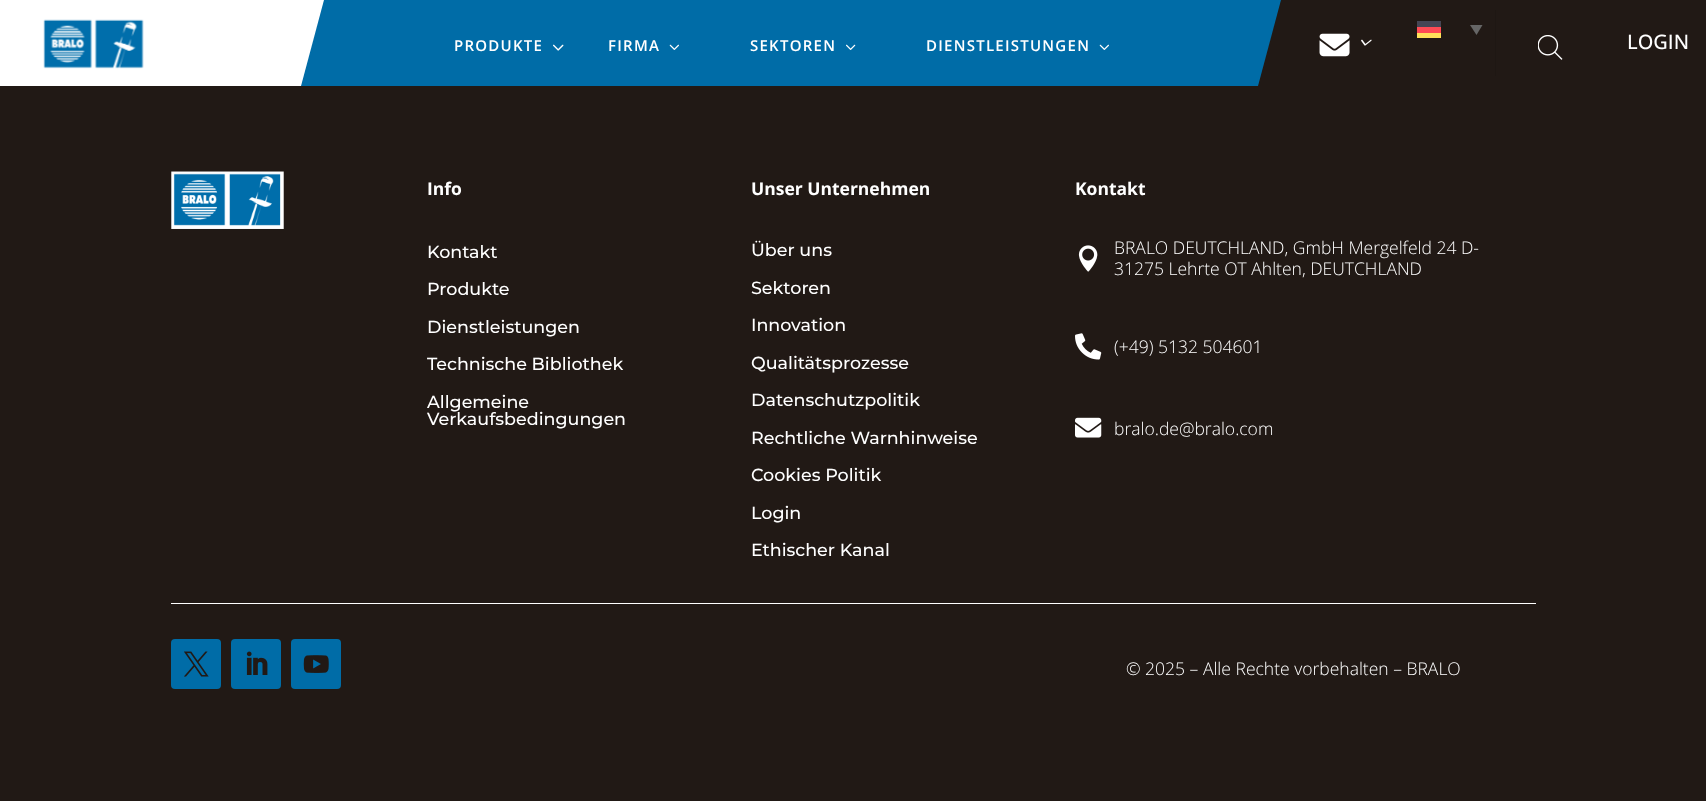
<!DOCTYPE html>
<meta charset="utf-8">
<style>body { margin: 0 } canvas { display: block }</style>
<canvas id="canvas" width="1706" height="801"></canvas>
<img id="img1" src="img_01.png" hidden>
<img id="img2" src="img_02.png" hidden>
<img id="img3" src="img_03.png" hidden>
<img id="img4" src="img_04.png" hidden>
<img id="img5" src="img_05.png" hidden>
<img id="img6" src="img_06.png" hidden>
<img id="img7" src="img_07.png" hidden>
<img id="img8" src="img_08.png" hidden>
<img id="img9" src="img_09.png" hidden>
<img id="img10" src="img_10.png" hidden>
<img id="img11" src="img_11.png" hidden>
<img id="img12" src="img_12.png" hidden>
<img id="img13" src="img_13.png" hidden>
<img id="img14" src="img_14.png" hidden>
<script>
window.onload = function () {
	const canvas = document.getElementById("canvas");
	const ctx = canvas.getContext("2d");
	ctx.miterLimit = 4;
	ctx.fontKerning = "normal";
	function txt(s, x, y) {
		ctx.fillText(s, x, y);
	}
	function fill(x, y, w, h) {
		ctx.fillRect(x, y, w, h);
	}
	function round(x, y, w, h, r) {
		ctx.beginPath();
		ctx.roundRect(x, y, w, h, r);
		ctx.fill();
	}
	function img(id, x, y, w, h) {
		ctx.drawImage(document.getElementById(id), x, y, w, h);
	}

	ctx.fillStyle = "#211915";
	fill(0, 0, 1706, 801);
	ctx.fillStyle = "#FFFFFF";
	fill(0, 0, 324, 86);
	img("img1", 43, 19, 101, 50);
	ctx.fillStyle = "#006CA7";
	ctx.beginPath();
	ctx.moveTo(324, 0);
	ctx.lineTo(1289, 0);
	ctx.lineTo(1266, 86);
	ctx.lineTo(301, 86);
	ctx.closePath();
	ctx.fill();
	img("img2", 553, 44, 11, 7);
	img("img3", 669, 44, 10, 6);
	img("img4", 846, 44, 10, 6);
	img("img3", 1099, 44, 10, 6);
	ctx.fillStyle = "#211915";
	ctx.beginPath();
	ctx.moveTo(1281, 0);
	ctx.lineTo(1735, 0);
	ctx.lineTo(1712, 86);
	ctx.lineTo(1258, 86);
	ctx.closePath();
	ctx.fill();
	img("img5", 1319, 33, 31, 24);
	img("img6", 1361, 39, 11, 7);
	ctx.fillStyle = "#1E1713";
	fill(1495, 10, 1, 66);
	ctx.fillStyle = "#FF4B55";
	fill(1417, 27, 24, 6);
	ctx.fillStyle = "#FFE15A";
	fill(1417, 33, 24, 5);
	ctx.fillStyle = "#464655";
	fill(1417, 21, 24, 6);
	ctx.fillStyle = "#666666";
	ctx.beginPath();
	ctx.moveTo(1470, 25);
	ctx.lineTo(1482.5, 25);
	ctx.lineTo(1476.5, 35);
	ctx.closePath();
	ctx.fill();
	img("img7", 1538, 35, 25, 25);
	img("img8", 171, 171, 113, 58);
	img("img9", 1078, 245, 20, 27);
	img("img10", 1075, 333, 27, 27);
	img("img11", 1075, 417, 27, 21);
	ctx.fillStyle = "#FFFFFF";
	fill(171, 603, 1365, 1);
	ctx.fillStyle = "#006CA7";
	round(171, 639, 50, 50, 4);
	img("img12", 184, 651, 25, 26);
	round(231, 639, 50, 50, 4);
	img("img13", 246, 651, 22, 24);
	round(291, 639, 50, 50, 4);
	img("img14", 303, 655, 26, 18);
	ctx.letterSpacing = "1.25px";
	ctx.font = "600 15px Open Sans";
	ctx.fillStyle = "#FFFFFF";
	txt("PRODUKTE", 454, 51);
	txt("FIRMA", 608, 51);
	txt("SEKTOREN", 750, 51);
	txt("DIENSTLEISTUNGEN", 926, 51);
	ctx.letterSpacing = "0px";
	ctx.font = "500 20px Open Sans";
	txt("LOGIN", 1627, 49);
	ctx.font = "bold 17.5px Open Sans";
	txt("Info", 427, 195);
	ctx.font = "100 17.5px Montserrat";
	txt("Kontakt", 427, 258);
	txt("Produkte", 427, 295);
	txt("Dienstleistungen", 427, 333);
	txt("Technische Bibliothek", 427, 370);
	txt("Allgemeine", 427, 408);
	txt("Verkaufsbedingungen", 427, 425);
	ctx.font = "bold 17.5px Open Sans";
	txt("Unser Unternehmen", 751, 195);
	ctx.font = "100 17.5px Montserrat";
	txt("Über uns", 751, 256);
	txt("Sektoren", 751, 294);
	txt("Innovation", 751, 331);
	txt("Qualitätsprozesse", 751, 369);
	txt("Datenschutzpolitik", 751, 406);
	txt("Rechtliche Warnhinweise", 751, 444);
	txt("Cookies Politik", 751, 481);
	txt("Login", 751, 519);
	txt("Ethischer Kanal", 751, 556);
	ctx.font = "bold 17.5px Open Sans";
	txt("Kontakt", 1075, 195);
	ctx.font = "300 17.5px Open Sans";
	txt("BRALO DEUTCHLAND, GmbH Mergelfeld 24 D-", 1114, 254);
	txt("31275 Lehrte OT Ahlten, DEUTCHLAND", 1114, 275);
	txt("(+49) 5132 504601", 1114, 353);
	txt("bralo.de@bralo.com", 1114, 435);
	txt("© 2025 – Alle Rechte vorbehalten – BRALO", 1126, 675);
};
</script>
